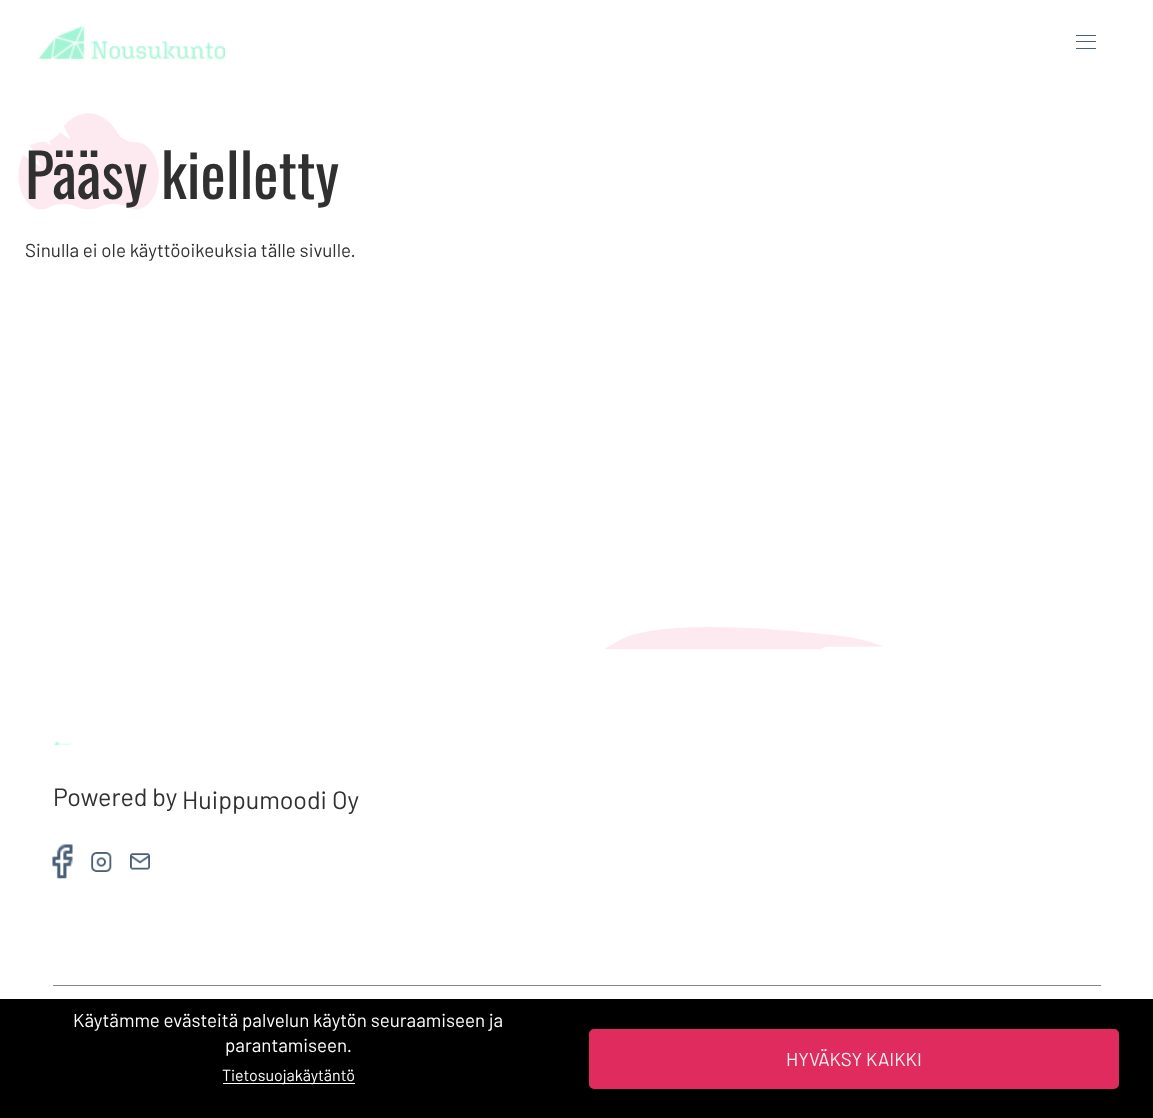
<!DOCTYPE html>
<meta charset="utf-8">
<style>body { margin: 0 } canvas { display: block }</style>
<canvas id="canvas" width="1153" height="1118"></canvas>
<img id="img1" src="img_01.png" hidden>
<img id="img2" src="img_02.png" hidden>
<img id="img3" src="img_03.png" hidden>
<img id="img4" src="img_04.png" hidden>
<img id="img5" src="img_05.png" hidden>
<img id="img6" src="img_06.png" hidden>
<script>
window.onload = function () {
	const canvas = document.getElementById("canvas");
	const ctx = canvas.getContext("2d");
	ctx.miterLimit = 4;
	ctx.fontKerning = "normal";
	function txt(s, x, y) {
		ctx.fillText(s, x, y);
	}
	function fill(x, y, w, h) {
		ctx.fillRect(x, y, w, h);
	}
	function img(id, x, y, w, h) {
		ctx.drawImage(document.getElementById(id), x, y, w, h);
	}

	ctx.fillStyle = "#FFFFFF";
	fill(0, 0, 1153, 1118);
	img("img1", 18, 113, 865, 536);
	img("img2", 38, 26, 188, 33);
	ctx.fillStyle = "#495E77";
	fill(1076, 35, 20, 1);
	fill(1076, 41, 20, 1);
	fill(1076, 48, 20, 1);
	img("img3", 54, 741, 17, 5);
	img("img4", 52, 844, 21, 35);
	img("img5", 91, 852, 21, 20);
	img("img6", 130, 853, 20, 17);
	ctx.fillStyle = "#858585";
	fill(53, 985, 1048, 1);
	ctx.fillStyle = "#000000";
	fill(0, 999, 1153, 119);
	ctx.fillStyle = "#FFFFFF";
	fill(223, 1083, 132, 1);
	ctx.fillStyle = "#DF2B5D";
	ctx.beginPath();
	ctx.roundRect(590.5, 1030.5, 527, 57, 3.5);
	ctx.fill();
	ctx.strokeStyle = "#DF2B5D";
	ctx.lineWidth = 3;
	ctx.stroke();
	ctx.font = "60px Oswald";
	ctx.fillStyle = "#303030";
	txt("Pääsy kielletty", 25, 199);
	ctx.font = "18.75px Barlow";
	txt("Sinulla ei ole käyttöoikeuksia tälle sivulle.", 25, 257);
	ctx.font = "25px Barlow";
	txt("Powered by", 53, 806);
	txt("Huippumoodi Oy", 182, 809);
	ctx.font = "18.75px Barlow";
	ctx.fillStyle = "#FFFFFF";
	txt("Käytämme evästeitä palvelun käytön seuraamiseen ja", 73, 1027);
	txt("parantamiseen.", 225, 1052);
	ctx.font = "16px Barlow";
	txt("Tietosuojakäytäntö", 222, 1081);
	ctx.font = "18.75px Barlow";
	ctx.fillStyle = "#F2F2F2";
	txt("HYVÄKSY KAIKKI", 786, 1066);
};
</script>
